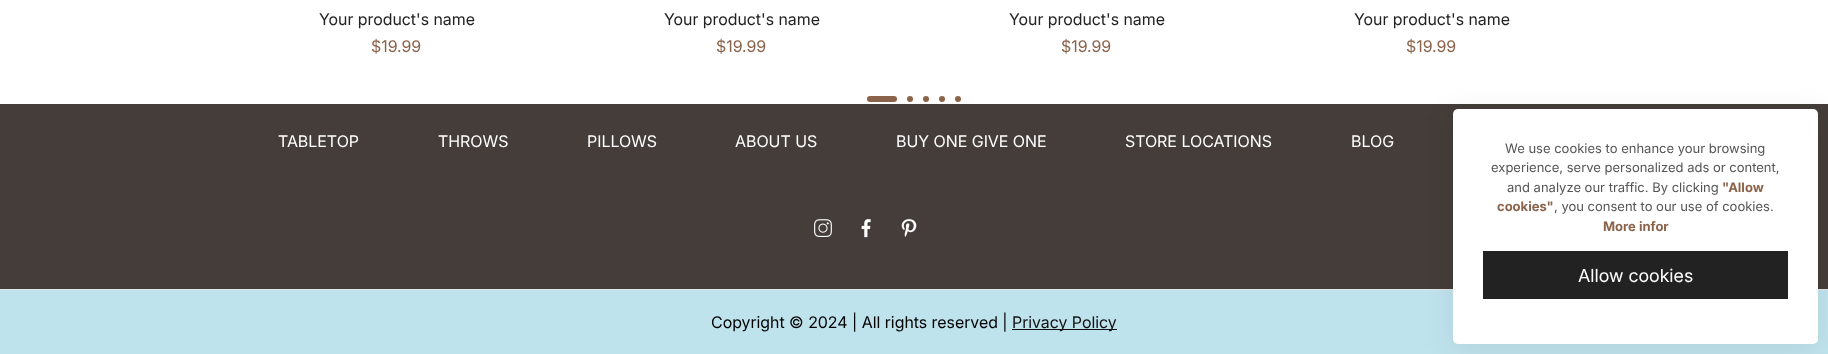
<!DOCTYPE html>
<meta charset="utf-8">
<style>body { margin: 0 } canvas { display: block }</style>
<canvas id="canvas" width="1828" height="354"></canvas>
<img id="img1" src="img_01.png" hidden>
<img id="img2" src="img_02.png" hidden>
<img id="img3" src="img_03.png" hidden>
<script>
window.onload = function () {
	const canvas = document.getElementById("canvas");
	const ctx = canvas.getContext("2d");
	ctx.miterLimit = 4;
	ctx.fontKerning = "normal";
	function txt(s, x, y) {
		ctx.fillText(s, x, y);
	}
	function fill(x, y, w, h) {
		ctx.fillRect(x, y, w, h);
	}
	function round(x, y, w, h, r) {
		ctx.beginPath();
		ctx.roundRect(x, y, w, h, r);
		ctx.fill();
	}
	function img(id, x, y, w, h) {
		ctx.drawImage(document.getElementById(id), x, y, w, h);
	}

	ctx.fillStyle = "#FFFFFF";
	fill(0, 0, 1828, 354);
	ctx.fillStyle = "#8B634B";
	round(867, 96, 30, 6, 3);
	ctx.beginPath();
	ctx.arc(910, 99, 3, 0, Math.PI * 2);
	ctx.fill();
	ctx.beginPath();
	ctx.arc(926, 99, 3, 0, Math.PI * 2);
	ctx.fill();
	ctx.beginPath();
	ctx.arc(942, 99, 3, 0, Math.PI * 2);
	ctx.fill();
	ctx.beginPath();
	ctx.arc(958, 99, 3, 0, Math.PI * 2);
	ctx.fill();
	ctx.fillStyle = "#443D39";
	fill(0, 104, 1828, 185);
	img("img1", 814, 219, 18, 18);
	img("img2", 861, 219, 10, 19);
	img("img3", 901, 219, 16, 18);
	ctx.fillStyle = "#BFE3ED";
	fill(0, 290, 1828, 64);
	ctx.fillStyle = "#E5E5E5";
	fill(0, 289, 1828, 1);
	ctx.fillStyle = "#111111";
	fill(1012, 329, 105, 1);
	ctx.fillStyle = "rgba(0, 0, 0, 0.08)";
	ctx.filter = "blur(15px)";
	ctx.beginPath();
	ctx.roundRect(1453, 114, 365, 235, 5);
	ctx.fill();
	ctx.filter = "none";
	ctx.fillStyle = "#FFFFFF";
	round(1453, 109, 365, 235, 5);
	ctx.fillStyle = "#222222";
	fill(1483, 251, 305, 48);
	ctx.font = "16px Inter";
	txt("Your product's name", 319, 25);
	ctx.fillStyle = "#8B634B";
	txt("$19.99", 371, 52);
	ctx.fillStyle = "#222222";
	txt("Your product's name", 664, 25);
	ctx.fillStyle = "#8B634B";
	txt("$19.99", 716, 52);
	ctx.fillStyle = "#222222";
	txt("Your product's name", 1009, 25);
	ctx.fillStyle = "#8B634B";
	txt("$19.99", 1061, 52);
	ctx.fillStyle = "#222222";
	txt("Your product's name", 1354, 25);
	ctx.fillStyle = "#8B634B";
	txt("$19.99", 1406, 52);
	ctx.fillStyle = "#FFFFFF";
	txt("TABLETOP", 278, 147);
	txt("THROWS", 438, 147);
	txt("PILLOWS", 587, 147);
	txt("ABOUT US", 735, 147);
	txt("BUY ONE GIVE ONE", 896, 147);
	txt("STORE LOCATIONS", 1125, 147);
	txt("BLOG", 1351, 147);
	ctx.fillStyle = "#000000";
	txt("Copyright © 2024 | All rights reserved |", 711, 328);
	ctx.fillStyle = "#111111";
	txt("Privacy Policy", 1012, 328);
	ctx.font = "13px 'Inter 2'";
	ctx.fillStyle = "#555555";
	txt("We use cookies to enhance your browsing", 1505, 153);
	txt("experience, serve personalized ads or content,", 1491, 172);
	txt("and analyze our traffic. By clicking", 1507, 192);
	ctx.font = "bold 13px Inter";
	ctx.fillStyle = "#8B634B";
	txt("\"Allow", 1722, 192);
	txt("cookies\"", 1497, 211);
	ctx.font = "13px 'Inter 2'";
	ctx.fillStyle = "#555555";
	txt(", you consent to our use of cookies.", 1554, 211);
	ctx.font = "bold 13px Inter";
	ctx.fillStyle = "#8B634B";
	txt("More infor", 1603, 231);
	ctx.font = "18px 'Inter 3'";
	ctx.fillStyle = "#FFFFFF";
	txt("Allow cookies", 1578, 282);
};
</script>
